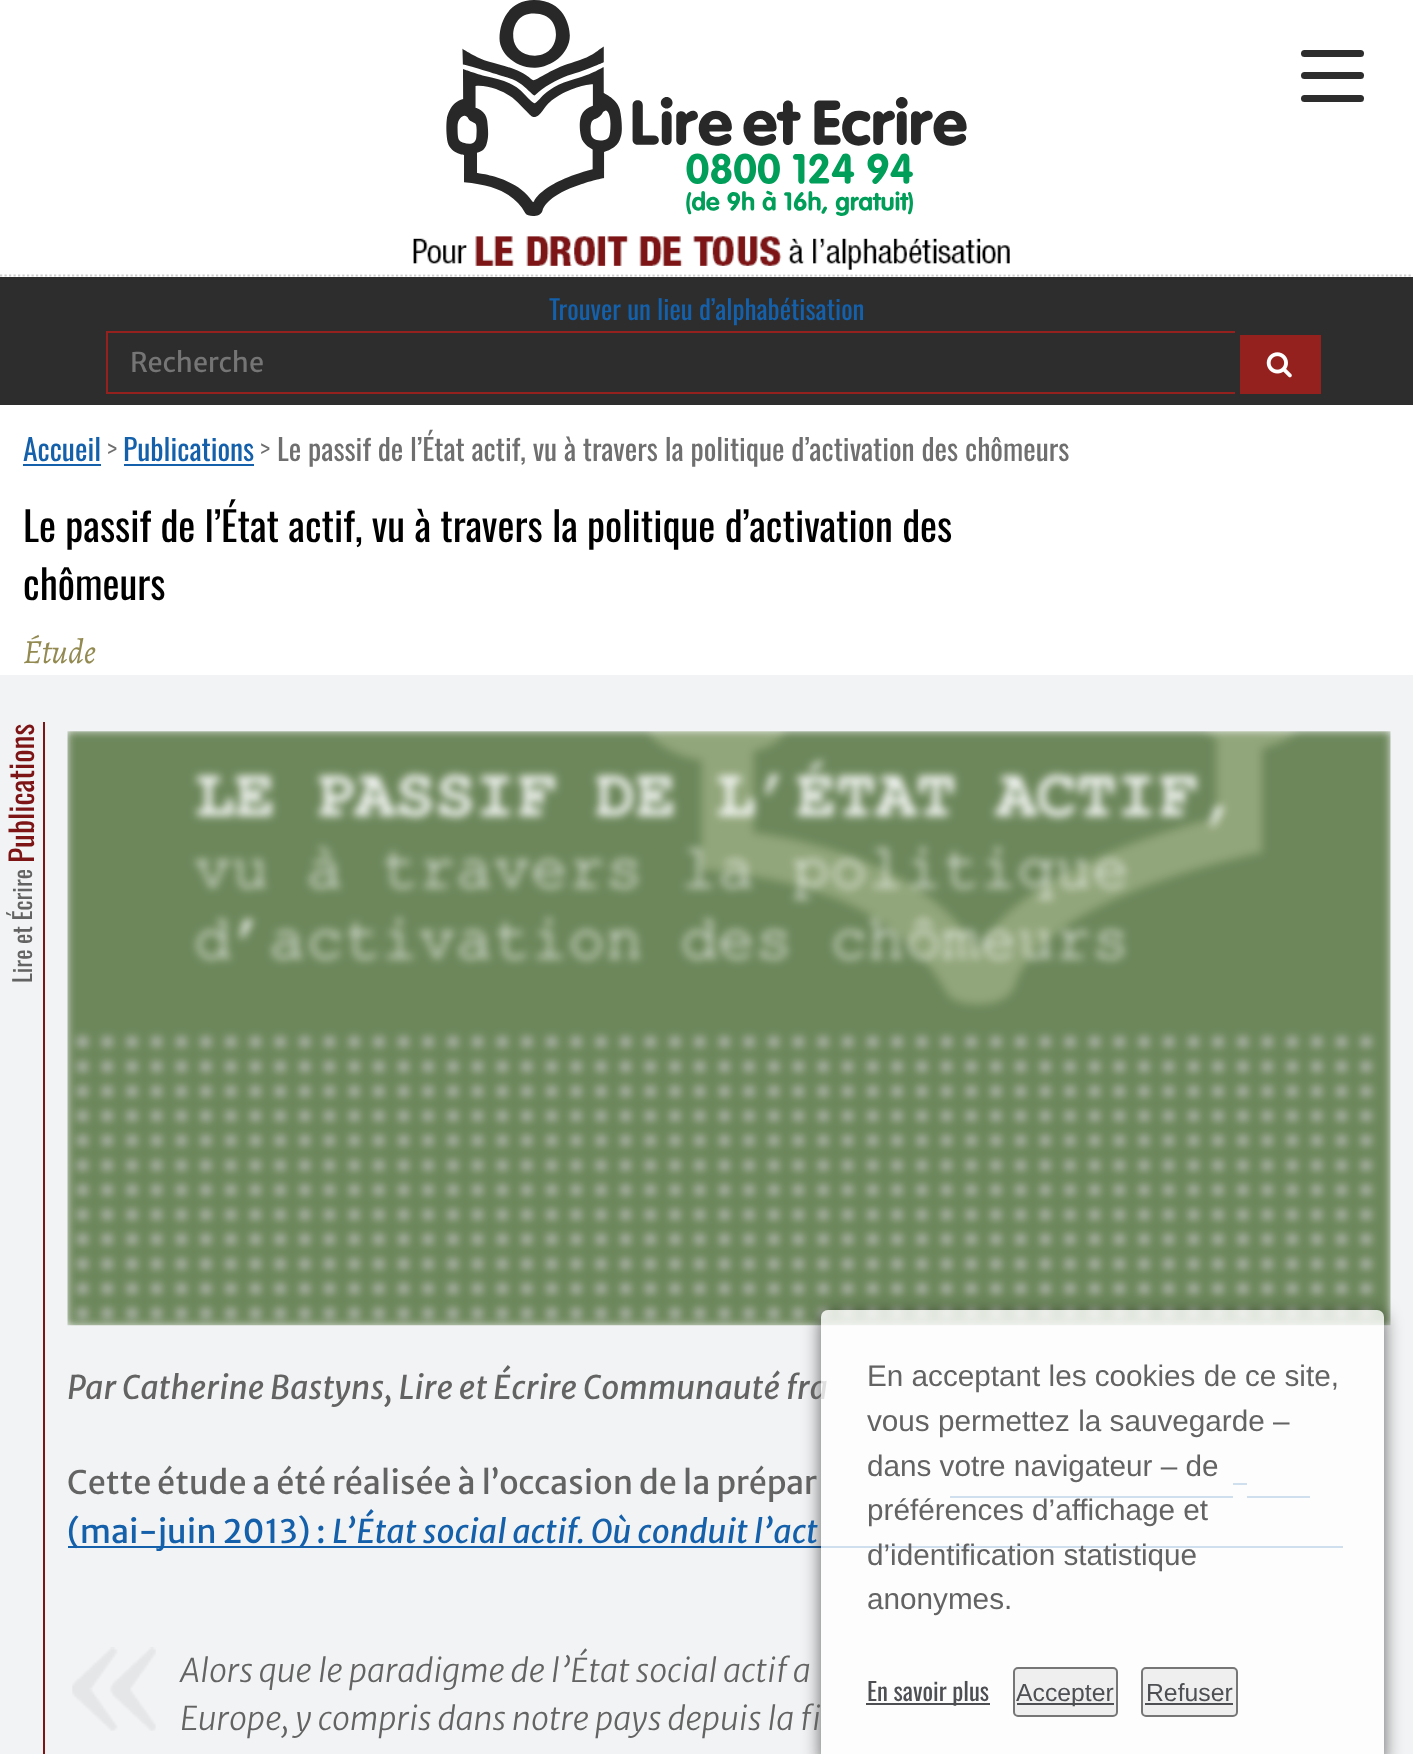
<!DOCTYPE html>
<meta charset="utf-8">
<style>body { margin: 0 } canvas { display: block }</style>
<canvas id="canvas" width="1413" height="1754"></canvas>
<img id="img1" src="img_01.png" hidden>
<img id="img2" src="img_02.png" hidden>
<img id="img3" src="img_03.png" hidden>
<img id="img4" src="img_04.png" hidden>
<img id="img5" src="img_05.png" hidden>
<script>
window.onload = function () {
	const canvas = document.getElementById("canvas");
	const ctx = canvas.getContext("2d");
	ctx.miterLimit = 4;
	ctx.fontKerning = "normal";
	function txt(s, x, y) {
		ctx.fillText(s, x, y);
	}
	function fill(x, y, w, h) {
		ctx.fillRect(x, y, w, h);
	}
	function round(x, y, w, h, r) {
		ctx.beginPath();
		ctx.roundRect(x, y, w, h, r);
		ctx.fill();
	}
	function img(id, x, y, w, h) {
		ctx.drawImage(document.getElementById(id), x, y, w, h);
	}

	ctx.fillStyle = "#FFFFFF";
	fill(0, 0, 1413, 1754);
	ctx.beginPath();
	ctx.moveTo(0, 275.5);
	ctx.lineTo(1413, 275.5);
	ctx.strokeStyle = "#CCCCCC";
	ctx.lineWidth = 2.2;
	ctx.setLineDash([2.25, 2.25]);
	ctx.stroke();
	img("img1", 446, 0, 521, 216);
	img("img2", 320, 236, 704, 39);
	ctx.fillStyle = "#2D2D2D";
	round(1301, 50, 63, 7, 3.5);
	round(1301, 72, 63, 7, 3.5);
	round(1301, 95, 63, 7, 3.5);
	fill(0, 277, 1413, 128);
	ctx.fillStyle = "#95211E";
	fill(106, 331, 1129, 2);
	fill(106, 392, 1129, 2);
	fill(106, 331, 2, 63);
	fill(1240, 335, 81, 59);
	img("img3", 1266, 352, 26, 26);
	ctx.fillStyle = "#1560AA";
	fill(23, 464, 78, 2);
	fill(124, 464, 130, 2);
	ctx.fillStyle = "#F2F3F4";
	fill(0, 675, 1413, 1079);
	ctx.fillStyle = "#7D1416";
	fill(43, 722, 2, 1032);
	img("img4", 67, 731, 1324, 595);
	ctx.save();
	ctx.beginPath();
	ctx.rect(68, 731, 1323, 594);
	ctx.clip();
	ctx.fillStyle = "rgba(238, 239, 240, 0.15)";
	ctx.filter = "blur(4.5px)";
	ctx.beginPath();
	ctx.rect(68, 731, 1323, 594);
	ctx.fill();
	ctx.filter = "none";
	ctx.restore();
	ctx.fillStyle = "#1560AA";
	fill(68, 1546, 1275, 2);
	fill(950, 1496, 283, 2);
	fill(1233, 1483, 14, 2);
	fill(1247, 1496, 63, 2);
	img("img5", 72, 1647, 84, 84);
	ctx.save();
	ctx.beginPath();
	ctx.moveTo(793, 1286);
	ctx.lineTo(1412, 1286);
	ctx.lineTo(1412, 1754);
	ctx.lineTo(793, 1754);
	ctx.closePath();
	ctx.moveTo(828, 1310);
	ctx.lineTo(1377, 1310);
	ctx.bezierCurveTo(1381, 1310, 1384, 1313, 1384, 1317);
	ctx.lineTo(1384, 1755);
	ctx.bezierCurveTo(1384, 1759, 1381, 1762, 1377, 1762);
	ctx.lineTo(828, 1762);
	ctx.bezierCurveTo(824, 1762, 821, 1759, 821, 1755);
	ctx.lineTo(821, 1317);
	ctx.bezierCurveTo(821, 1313, 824, 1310, 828, 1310);
	ctx.closePath();
	ctx.clip("evenodd");
	ctx.fillStyle = "rgba(0, 0, 0, 0.6)";
	ctx.filter = "blur(9px)";
	ctx.beginPath();
	ctx.roundRect(821, 1314, 563, 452, 7);
	ctx.fill();
	ctx.filter = "none";
	ctx.restore();
	ctx.font = "27px Oswald";
	txt("Trouver un lieu d’alphabétisation", 549, 320);
	ctx.font = "27px Merriweather Sans";
	ctx.fillStyle = "#757575";
	txt("Recherche", 130, 372);
	ctx.font = "29.7px Oswald";
	ctx.fillStyle = "#1560AA";
	txt("Accueil", 23, 461);
	ctx.font = "300 29.7px Oswald";
	ctx.fillStyle = "#6F6F6F";
	txt(">", 107, 461);
	ctx.font = "29.7px Oswald";
	ctx.fillStyle = "#1560AA";
	txt("Publications", 123, 461);
	ctx.font = "300 29.7px Oswald";
	ctx.fillStyle = "#6F6F6F";
	txt(">", 260, 461);
	ctx.font = "29.7px Oswald";
	txt("Le passif de l’État actif, vu à travers la politique d’activation des chômeurs", 277, 461);
	ctx.font = "40.5px Oswald";
	ctx.fillStyle = "#000000";
	txt("Le passif de l’État actif, vu à travers la politique d’activation des", 23, 542);
	txt("chômeurs", 23, 600);
	ctx.font = "italic 34px Alegreya";
	ctx.fillStyle = "#938A51";
	txt("Étude", 23, 663);
	ctx.font = "31.5px Oswald";
	ctx.fillStyle = "#7D1416";
	ctx.save();
	ctx.translate(34, 863);
	ctx.rotate(-90 * Math.PI / 180);
	ctx.fillText("Publications", 0, 0);
	ctx.restore();
	ctx.font = "24.5px Oswald";
	ctx.fillStyle = "#636363";
	ctx.save();
	ctx.translate(32, 983);
	ctx.rotate(-90 * Math.PI / 180);
	ctx.fillText("Lire et Écrire", 0, 0);
	ctx.restore();
	ctx.font = "italic 32.4px Merriweather Sans";
	txt("Par Catherine Bastyns, Lire et Écrire Communauté fra", 67, 1399);
	ctx.font = "32.4px Merriweather Sans";
	txt("Cette étude a été réalisée à l’occasion de la prépar", 67, 1494);
	ctx.fillStyle = "#1560AA";
	txt("(mai-juin 2013) :", 67, 1543);
	ctx.font = "italic 32.4px Merriweather Sans";
	txt("L’État social actif. Où conduit l’act", 332, 1543);
	ctx.font = "italic 300 32.4px Merriweather Sans";
	ctx.fillStyle = "#636363";
	txt("Alors que le paradigme de l’État social actif a", 180, 1682);
	txt("Europe, y compris dans notre pays depuis la fi", 180, 1730);
	ctx.fillStyle = "rgba(255, 255, 255, 0.8)";
	round(821, 1310, 563, 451, 7);
	ctx.font = "29.7px Liberation Sans";
	ctx.fillStyle = "#636363";
	txt("En acceptant les cookies de ce site,", 867, 1386);
	txt("vous permettez la sauvegarde –", 867, 1431);
	txt("dans votre navigateur – de", 867, 1476);
	txt("préférences d’affichage et", 867, 1520);
	txt("d’identification statistique", 867, 1565);
	txt("anonymes.", 867, 1609);
	ctx.fillStyle = "#4D4F53";
	fill(866, 1703, 124, 2);
	ctx.font = "24.75px Oswald";
	txt("En savoir plus", 867, 1701);
	ctx.fillStyle = "#EFEFEF";
	ctx.beginPath();
	ctx.roundRect(1014, 1668, 103, 48, 4);
	ctx.fill();
	ctx.strokeStyle = "#767676";
	ctx.lineWidth = 2;
	ctx.setLineDash([]);
	ctx.stroke();
	ctx.fillStyle = "#4D4F53";
	fill(1017, 1703, 97, 2);
	ctx.font = "24.75px Liberation Sans";
	txt("Accepter", 1016, 1701);
	ctx.fillStyle = "#EFEFEF";
	ctx.beginPath();
	ctx.roundRect(1142, 1668, 95, 48, 4);
	ctx.fill();
	ctx.stroke();
	ctx.fillStyle = "#4D4F53";
	txt("Refuser", 1146, 1701);
	fill(1145, 1703, 88, 2);
};
</script>
